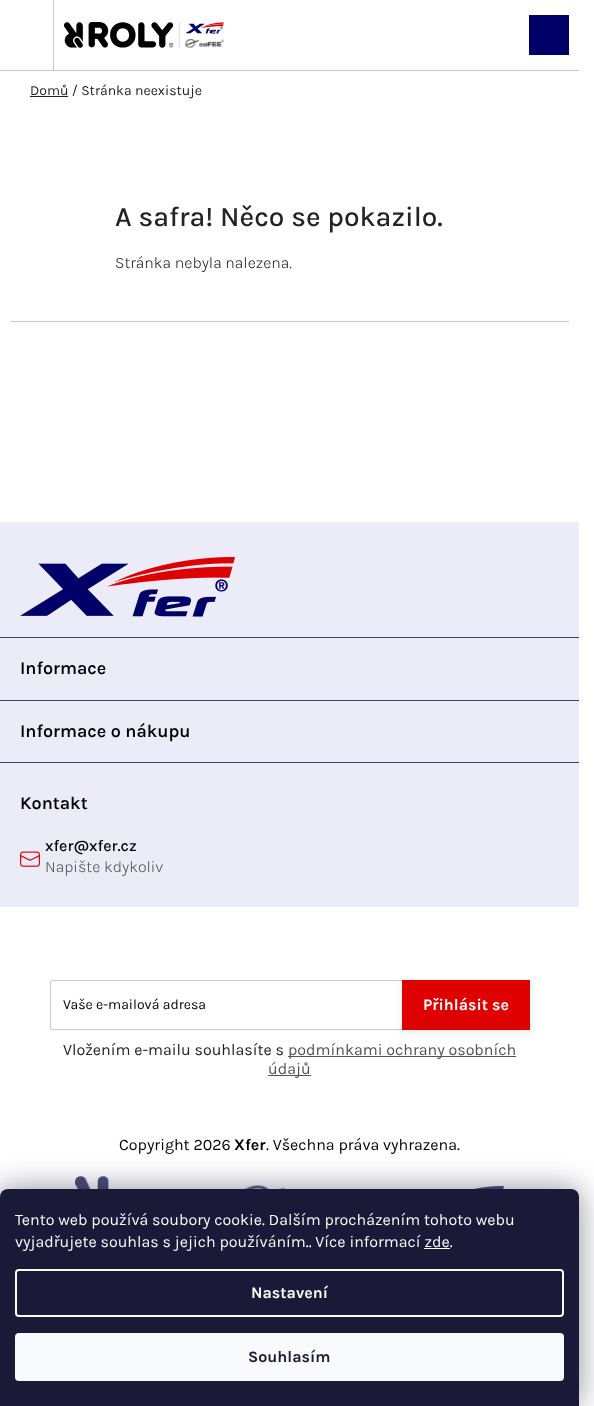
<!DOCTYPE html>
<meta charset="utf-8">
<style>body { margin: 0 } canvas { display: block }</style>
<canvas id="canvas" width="594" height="1406"></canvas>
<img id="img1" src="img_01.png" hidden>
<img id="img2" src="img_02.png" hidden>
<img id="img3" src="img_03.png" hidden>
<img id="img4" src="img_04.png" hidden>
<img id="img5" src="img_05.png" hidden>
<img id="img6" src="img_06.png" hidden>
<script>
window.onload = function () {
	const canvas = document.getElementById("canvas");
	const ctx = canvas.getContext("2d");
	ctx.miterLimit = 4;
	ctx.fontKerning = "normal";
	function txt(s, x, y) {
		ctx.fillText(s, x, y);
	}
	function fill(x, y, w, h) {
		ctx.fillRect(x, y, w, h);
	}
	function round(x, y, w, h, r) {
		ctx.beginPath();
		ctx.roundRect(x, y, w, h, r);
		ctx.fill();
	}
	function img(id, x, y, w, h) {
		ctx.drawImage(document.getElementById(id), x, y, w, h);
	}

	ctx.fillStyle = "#FFFFFF";
	fill(0, 0, 594, 1406);
	ctx.fillStyle = "#C8C8C8";
	fill(0, 70, 579, 1);
	fill(53, 0, 1, 70);
	ctx.fillStyle = "#000068";
	fill(529, 15, 40, 40);
	img("img1", 64, 22, 160, 26);
	ctx.fillStyle = "#232323";
	fill(30, 96, 38, 1);
	ctx.fillStyle = "#C8C8C8";
	fill(10, 321, 559, 1);
	ctx.fillStyle = "#ECECF8";
	fill(0, 522, 579, 385);
	ctx.fillStyle = "#384271";
	fill(0, 637, 579, 1);
	img("img2", 20, 557, 215, 60);
	fill(0, 700, 579, 1);
	fill(0, 762, 579, 1);
	img("img3", 20, 851, 20, 16);
	ctx.beginPath();
	ctx.roundRect(50.5, 980.5, 479, 49, 1.5);
	ctx.strokeStyle = "#C8C8C8";
	ctx.stroke();
	ctx.fillStyle = "rgba(0, 0, 0, 0.08)";
	ctx.filter = "blur(4px)";
	ctx.beginPath();
	ctx.rect(402, 983, 128, 50);
	ctx.fill();
	ctx.filter = "none";
	ctx.fillStyle = "#DF0000";
	fill(402, 980, 128, 50);
	ctx.fillStyle = "#525252";
	fill(288, 1056, 228, 1);
	fill(268, 1075, 43, 1);
	img("img4", 75, 1176, 34, 13);
	img("img5", 244, 1185, 42, 4);
	img("img6", 474, 1186, 30, 3);
	ctx.fillStyle = "rgba(27, 25, 57, 0.5)";
	ctx.filter = "blur(15px)";
	ctx.beginPath();
	ctx.roundRect(0, 1189, 579, 217, 8);
	ctx.fill();
	ctx.filter = "none";
	ctx.fillStyle = "#1A1937";
	ctx.beginPath();
	ctx.roundRect(0, 1189, 579, 217, [8, 8, 0, 0]);
	ctx.fill();
	ctx.fillStyle = "#F8FAFB";
	fill(424, 1248, 26, 1);
	ctx.beginPath();
	ctx.roundRect(16, 1270, 547, 46, 3);
	ctx.strokeStyle = "#F8FAFB";
	ctx.lineWidth = 2;
	ctx.stroke();
	round(15, 1333, 549, 48, 4);
	ctx.font = "14px Karla";
	ctx.fillStyle = "#232323";
	txt("Domů / Stránka neexistuje", 30, 95);
	ctx.font = "500 28px Karla";
	txt("A safra! Něco se pokazilo.", 115, 226);
	ctx.font = "300 16px Karla";
	txt("Stránka nebyla nalezena.", 115, 268);
	ctx.font = "600 18px Karla";
	ctx.fillStyle = "#000000";
	txt("Informace", 20, 674);
	txt("Informace o nákupu", 20, 737);
	txt("Kontakt", 20, 809);
	ctx.font = "500 16px Karla";
	txt("xfer@xfer.cz", 45, 851);
	ctx.font = "300 16px Karla";
	ctx.fillStyle = "#525252";
	txt("Napište kdykoliv", 45, 872);
	ctx.font = "14px Karla";
	ctx.fillStyle = "#000000";
	txt("Vaše e-mailová adresa", 63, 1009);
	ctx.font = "bold 16px Karla";
	ctx.fillStyle = "#FFFFFF";
	txt("Přihlásit se", 423, 1010);
	ctx.font = "16px Karla";
	ctx.fillStyle = "#232323";
	txt("Vložením e-mailu souhlasíte s", 63, 1055);
	ctx.fillStyle = "#525252";
	txt("podmínkami ochrany osobních", 288, 1055);
	txt("údajů", 268, 1074);
	ctx.fillStyle = "#000000";
	txt("Copyright 2026", 119, 1150);
	ctx.font = "bold 16px Karla";
	txt("Xfer", 234, 1150);
	ctx.font = "16px Karla";
	txt(". Všechna práva vyhrazena.", 266, 1150);
	ctx.fillStyle = "#F8FAFB";
	txt("Tento web používá soubory cookie. Dalším procházením tohoto webu", 15, 1225);
	txt("vyjadřujete souhlas s jejich používáním.. Více informací zde.", 15, 1247);
	ctx.font = "bold 16px Karla";
	txt("Nastavení", 251, 1298);
	ctx.fillStyle = "#1A1937";
	txt("Souhlasím", 248, 1362);
};
</script>
